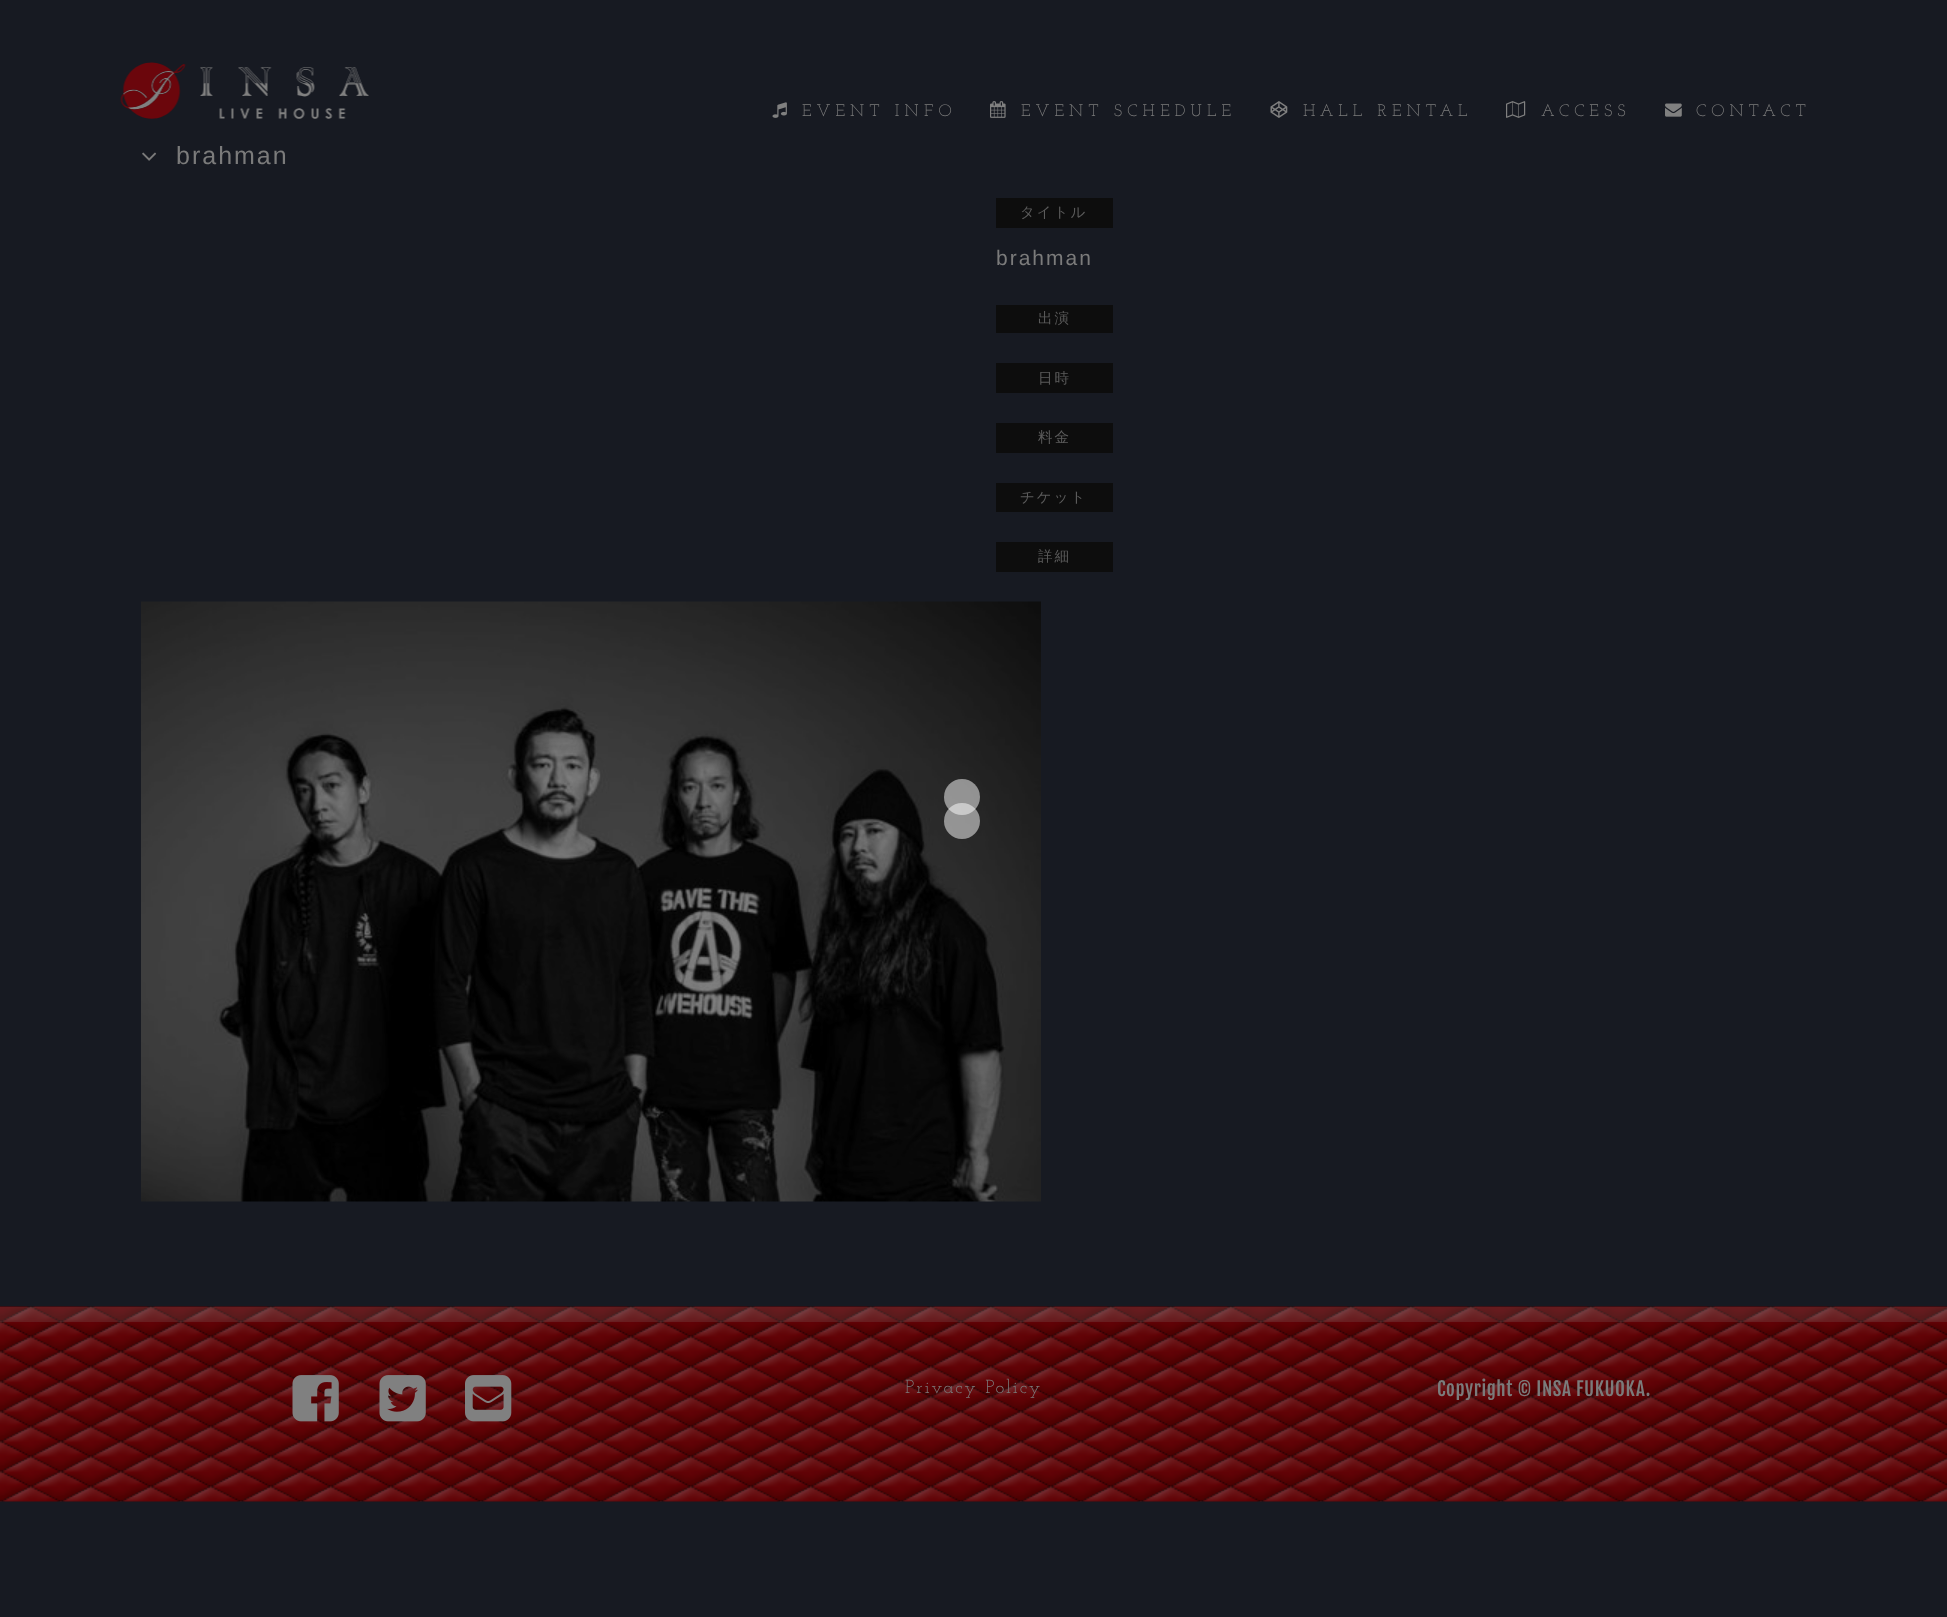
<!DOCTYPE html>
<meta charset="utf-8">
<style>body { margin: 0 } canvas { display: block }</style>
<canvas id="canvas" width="1947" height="1617"></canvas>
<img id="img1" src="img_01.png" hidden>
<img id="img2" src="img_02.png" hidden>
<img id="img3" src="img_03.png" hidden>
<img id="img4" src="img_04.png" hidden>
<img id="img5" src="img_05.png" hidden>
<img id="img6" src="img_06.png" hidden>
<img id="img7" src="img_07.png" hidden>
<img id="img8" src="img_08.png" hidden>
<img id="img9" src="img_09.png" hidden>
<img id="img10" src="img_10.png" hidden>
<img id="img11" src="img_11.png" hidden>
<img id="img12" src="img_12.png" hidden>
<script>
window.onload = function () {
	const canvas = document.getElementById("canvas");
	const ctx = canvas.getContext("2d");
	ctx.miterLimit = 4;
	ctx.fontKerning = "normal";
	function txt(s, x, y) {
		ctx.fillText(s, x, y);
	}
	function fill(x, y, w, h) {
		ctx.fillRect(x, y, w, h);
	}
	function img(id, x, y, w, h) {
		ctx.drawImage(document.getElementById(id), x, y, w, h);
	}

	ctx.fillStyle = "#171A22";
	fill(0, 0, 1947, 1617);
	img("img1", 120, 62, 249, 57);
	img("img2", 772, 102, 15, 16);
	img("img3", 990, 101, 16, 17);
	img("img4", 1270, 101, 18, 17);
	img("img5", 1506, 101, 20, 17);
	img("img6", 1665, 103, 17, 14);
	img("img7", 142, 152, 15, 9);
	ctx.fillStyle = "#0D0D0D";
	fill(996, 198, 117, 30);
	fill(996, 305, 117, 28);
	fill(996, 363, 117, 30);
	fill(996, 423, 117, 30);
	fill(996, 483, 117, 29);
	fill(996, 542, 117, 30);
	img("img8", 141, 601, 900, 601);
	ctx.fillStyle = "rgba(255, 255, 255, 0.5)";
	ctx.beginPath();
	ctx.arc(962, 797, 18, 0, Math.PI * 2);
	ctx.fill();
	ctx.beginPath();
	ctx.arc(962, 821, 18, 0, Math.PI * 2);
	ctx.fill();
	img("img9", 0, 1306, 1947, 196);
	ctx.fillStyle = "rgba(128, 128, 128, 0.2)";
	fill(0, 1307, 1947, 15);
	img("img10", 292, 1375, 47, 47);
	img("img11", 379, 1375, 47, 47);
	img("img12", 465, 1375, 47, 47);
	ctx.letterSpacing = "5px";
	ctx.font = "100 16.75px Josefin Slab";
	ctx.fillStyle = "#7B7B7B";
	txt("EVENT INFO", 802, 116);
	txt("EVENT SCHEDULE", 1021, 116);
	txt("HALL RENTAL", 1303, 116);
	txt("ACCESS", 1541, 116);
	txt("CONTACT", 1696, 116);
	ctx.letterSpacing = "2px";
	ctx.font = "25px Liberation Sans";
	txt("brahman", 176, 164);
	ctx.font = "500 14.5px WenQuanYi Zen Hei";
	ctx.fillStyle = "#5B5B5B";
	txt("タイトル", 1020, 217);
	ctx.font = "21px Liberation Sans";
	ctx.fillStyle = "#7B7B7B";
	txt("brahman", 996, 265);
	ctx.font = "500 14.5px WenQuanYi Zen Hei";
	ctx.fillStyle = "#5B5B5B";
	txt("出演", 1038, 323);
	txt("日時", 1038, 383);
	txt("料金", 1038, 442);
	txt("チケット", 1020, 502);
	txt("詳細", 1038, 561);
	ctx.letterSpacing = "1.9px";
	ctx.font = "100 18.9px Josefin Slab";
	ctx.fillStyle = "#7B7B7B";
	txt("Privacy Policy", 905, 1393);
	ctx.letterSpacing = "0.6px";
	ctx.font = "18.9px Fjalla One";
	txt("Copyright © INSA FUKUOKA.", 1437, 1396);
};
</script>
